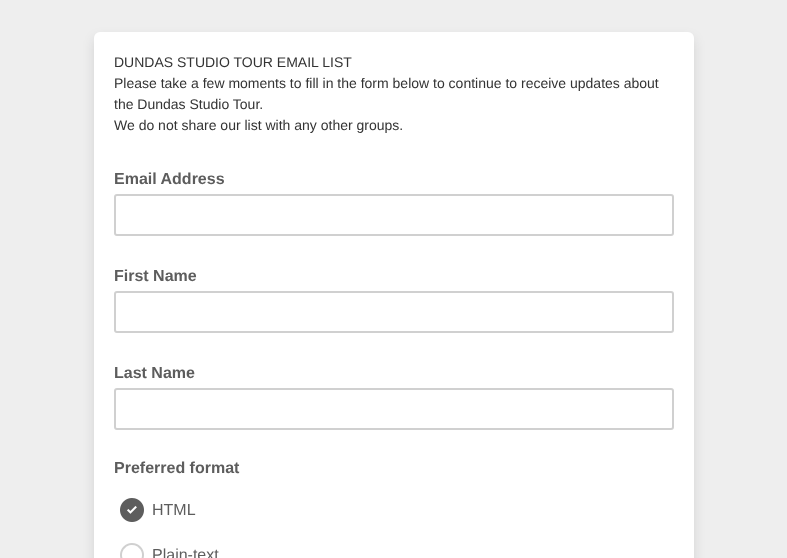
<!DOCTYPE html>
<meta charset="utf-8">
<style>body { margin: 0 } canvas { display: block }</style>
<canvas id="canvas" width="787" height="558"></canvas>
<img id="img1" src="img_01.png" hidden>
<img id="img2" src="img_02.png" hidden>
<script>
window.onload = function () {
	const canvas = document.getElementById("canvas");
	const ctx = canvas.getContext("2d");
	ctx.miterLimit = 4;
	ctx.fontKerning = "normal";
	function txt(s, x, y) {
		ctx.fillText(s, x, y);
	}
	function fill(x, y, w, h) {
		ctx.fillRect(x, y, w, h);
	}
	function round(x, y, w, h, r) {
		ctx.beginPath();
		ctx.roundRect(x, y, w, h, r);
		ctx.fill();
	}
	function img(id, x, y, w, h) {
		ctx.drawImage(document.getElementById(id), x, y, w, h);
	}

	ctx.fillStyle = "#EEEEEE";
	fill(0, 0, 787, 558);
	ctx.fillStyle = "rgba(13, 18, 22, 0.12)";
	ctx.filter = "blur(6px)";
	ctx.beginPath();
	ctx.roundRect(94, 38, 600, 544, 6);
	ctx.fill();
	ctx.filter = "none";
	ctx.fillStyle = "#FFFFFF";
	round(94, 32, 600, 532, 6);
	ctx.beginPath();
	ctx.roundRect(115, 195, 558, 40, 2);
	ctx.strokeStyle = "#D0D0D0";
	ctx.lineWidth = 2;
	ctx.stroke();
	ctx.beginPath();
	ctx.roundRect(115, 292, 558, 40, 2);
	ctx.stroke();
	ctx.beginPath();
	ctx.roundRect(115, 389, 558, 40, 2);
	ctx.stroke();
	img("img1", 120, 498, 24, 24);
	img("img2", 120, 543, 24, 15);
	ctx.font = "14px Liberation Sans";
	ctx.fillStyle = "#333333";
	txt("DUNDAS STUDIO TOUR EMAIL LIST", 114, 67);
	txt("Please take a few moments to fill in the form below to continue to receive updates about", 114, 88);
	txt("the Dundas Studio Tour.", 114, 109);
	txt("We do not share our list with any other groups.", 114, 130);
	ctx.font = "bold 16px Liberation Sans";
	ctx.fillStyle = "#5D5D5D";
	txt("Email Address", 114, 184);
	txt("First Name", 114, 281);
	txt("Last Name", 114, 378);
	txt("Preferred format", 114, 473);
	ctx.font = "16px Liberation Sans";
	txt("HTML", 152, 515);
	txt("Plain-text", 152, 560);
};
</script>
